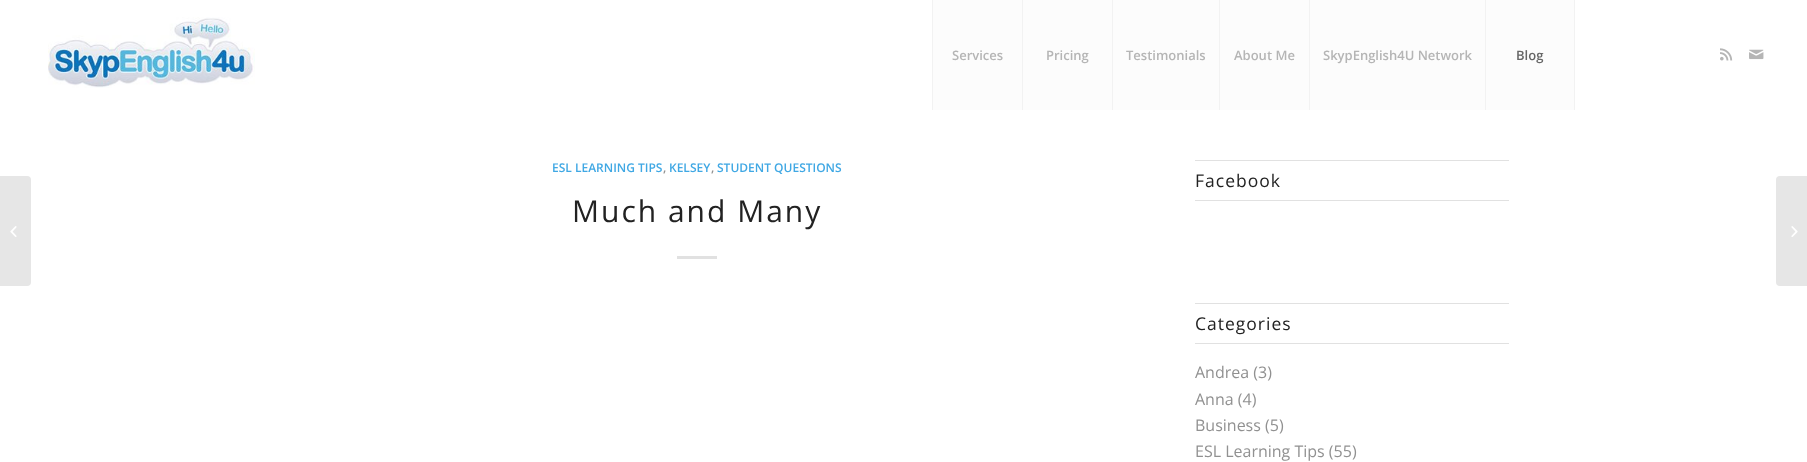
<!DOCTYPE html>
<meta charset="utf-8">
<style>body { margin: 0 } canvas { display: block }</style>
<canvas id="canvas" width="1807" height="462"></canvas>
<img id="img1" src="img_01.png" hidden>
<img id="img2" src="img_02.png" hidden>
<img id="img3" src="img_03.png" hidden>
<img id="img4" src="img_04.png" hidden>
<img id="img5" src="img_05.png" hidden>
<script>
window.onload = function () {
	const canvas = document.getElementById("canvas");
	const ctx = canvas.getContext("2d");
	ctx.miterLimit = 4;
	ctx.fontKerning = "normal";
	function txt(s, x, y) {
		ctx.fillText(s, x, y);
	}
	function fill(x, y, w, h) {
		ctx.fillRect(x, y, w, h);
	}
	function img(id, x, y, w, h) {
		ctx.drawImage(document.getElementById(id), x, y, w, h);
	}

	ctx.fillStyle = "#FFFFFF";
	fill(0, 0, 1807, 462);
	img("img1", 48, 17, 207, 71);
	ctx.fillStyle = "#FCFCFC";
	fill(933, 0, 89, 110);
	ctx.fillStyle = "#F2F2F2";
	fill(932, 0, 1, 110);
	ctx.fillStyle = "#FCFCFC";
	fill(1023, 0, 89, 110);
	ctx.fillStyle = "#F2F2F2";
	fill(1022, 0, 1, 110);
	ctx.fillStyle = "#FCFCFC";
	fill(1113, 0, 106, 110);
	ctx.fillStyle = "#F2F2F2";
	fill(1112, 0, 1, 110);
	ctx.fillStyle = "#FCFCFC";
	fill(1220, 0, 89, 110);
	ctx.fillStyle = "#F2F2F2";
	fill(1219, 0, 1, 110);
	ctx.fillStyle = "#FCFCFC";
	fill(1310, 0, 175, 110);
	ctx.fillStyle = "#F2F2F2";
	fill(1309, 0, 1, 110);
	ctx.fillStyle = "#FCFCFC";
	fill(1486, 0, 88, 110);
	ctx.fillStyle = "#F2F2F2";
	fill(1574, 0, 1, 110);
	fill(1485, 0, 1, 110);
	img("img2", 1720, 48, 13, 13);
	img("img3", 1749, 49, 15, 11);
	ctx.fillStyle = "#E6E6E6";
	ctx.beginPath();
	ctx.roundRect(0, 176, 31, 110, [0, 4, 4, 0]);
	ctx.fill();
	img("img4", 10, 226, 7, 11);
	ctx.fillStyle = "#E1E1E1";
	fill(677, 256, 40, 3);
	fill(1195, 160, 314, 1);
	fill(1195, 200, 314, 1);
	fill(1195, 303, 314, 1);
	fill(1195, 343, 314, 1);
	ctx.fillStyle = "#E6E6E6";
	ctx.beginPath();
	ctx.roundRect(1776, 176, 31, 110, [4, 0, 0, 4]);
	ctx.fill();
	img("img5", 1791, 226, 7, 11);
	ctx.font = "600 13px Open Sans";
	ctx.fillStyle = "#B5B5B5";
	txt("Services", 952, 60);
	txt("Pricing", 1046, 60);
	txt("Testimonials", 1126, 60);
	txt("About Me", 1234, 60);
	txt("SkypEnglish4U Network", 1323, 60);
	ctx.fillStyle = "#666666";
	txt("Blog", 1516, 60);
	ctx.font = "600 12px Open Sans";
	ctx.fillStyle = "#40A8E4";
	txt("ESL LEARNING TIPS", 552, 172);
	ctx.fillStyle = "#919191";
	txt(",", 663, 172);
	ctx.fillStyle = "#40A8E4";
	txt("KELSEY", 669, 172);
	ctx.fillStyle = "#919191";
	txt(",", 711, 172);
	ctx.fillStyle = "#40A8E4";
	txt("STUDENT QUESTIONS", 717, 172);
	ctx.letterSpacing = "2px";
	ctx.font = "30px Open Sans";
	ctx.fillStyle = "#222222";
	txt("Much and Many", 572, 222);
	ctx.letterSpacing = "1px";
	ctx.font = "17.5px Open Sans";
	txt("Facebook", 1195, 187);
	txt("Categories", 1195, 330);
	ctx.letterSpacing = "0px";
	ctx.font = "16px Open Sans";
	ctx.fillStyle = "#919191";
	txt("Andrea (3)", 1195, 378);
	txt("Anna (4)", 1195, 405);
	txt("Business (5)", 1195, 431);
	txt("ESL Learning Tips (55)", 1195, 457);
};
</script>
